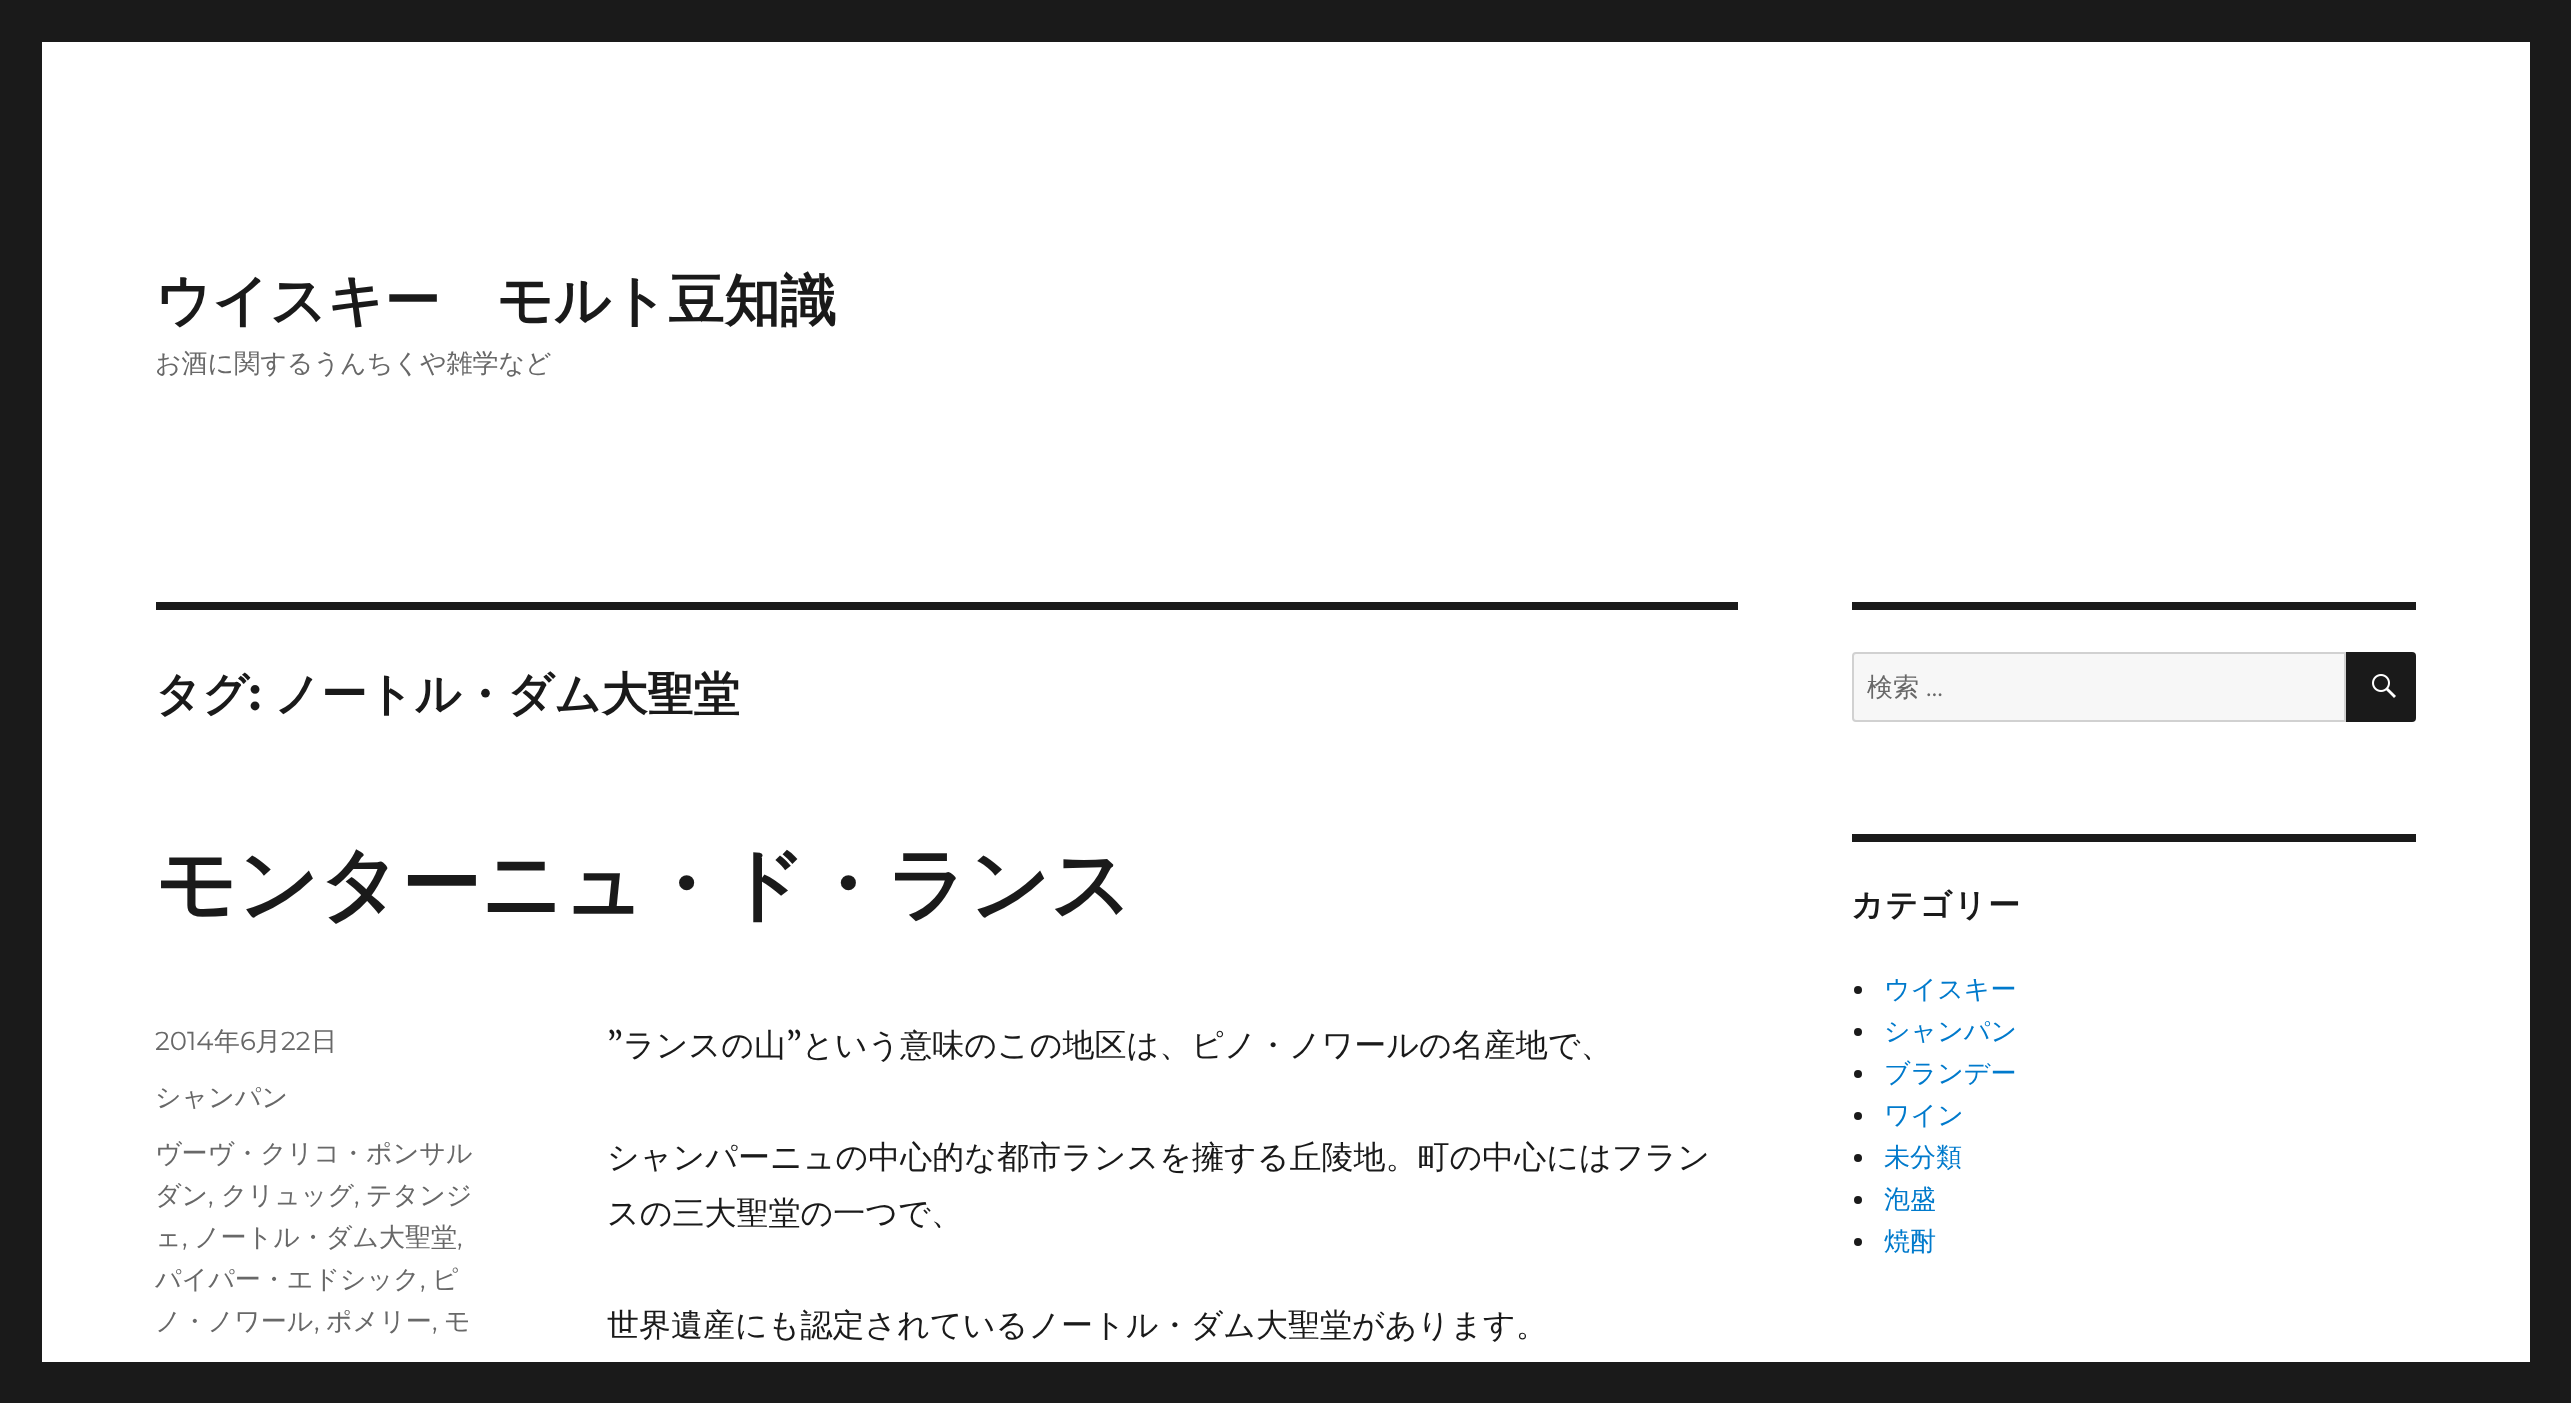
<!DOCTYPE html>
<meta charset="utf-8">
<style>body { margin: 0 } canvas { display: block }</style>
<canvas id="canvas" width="2571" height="1403"></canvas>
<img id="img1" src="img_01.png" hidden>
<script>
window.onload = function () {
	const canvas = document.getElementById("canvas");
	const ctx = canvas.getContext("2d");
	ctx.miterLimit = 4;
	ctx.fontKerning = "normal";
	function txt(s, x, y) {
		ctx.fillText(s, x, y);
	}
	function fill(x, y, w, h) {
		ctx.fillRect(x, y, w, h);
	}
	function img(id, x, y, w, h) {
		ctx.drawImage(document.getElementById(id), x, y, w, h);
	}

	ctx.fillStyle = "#1A1A1A";
	fill(0, 0, 2571, 1403);
	ctx.fillStyle = "#FFFFFF";
	fill(42, 42, 2488, 1320);
	ctx.fillStyle = "#1A1A1A";
	fill(156, 602, 1582, 8);
	fill(1852, 602, 564, 8);
	ctx.fillStyle = "#F7F7F7";
	ctx.beginPath();
	ctx.roundRect(1853, 653, 492, 68, [3, 0, 0, 3]);
	ctx.fill();
	ctx.strokeStyle = "#D1D1D1";
	ctx.lineWidth = 2;
	ctx.stroke();
	ctx.fillStyle = "#1A1A1A";
	ctx.beginPath();
	ctx.roundRect(2346, 652, 70, 70, [0, 4, 4, 0]);
	ctx.fill();
	img("img1", 2372, 674, 24, 24);
	fill(1852, 834, 564, 8);
	ctx.beginPath();
	ctx.arc(1858, 990, 4, 0, Math.PI * 2);
	ctx.fill();
	ctx.beginPath();
	ctx.arc(1858, 1032, 4, 0, Math.PI * 2);
	ctx.fill();
	ctx.beginPath();
	ctx.arc(1858, 1074, 4, 0, Math.PI * 2);
	ctx.fill();
	ctx.beginPath();
	ctx.arc(1858, 1116, 4, 0, Math.PI * 2);
	ctx.fill();
	ctx.beginPath();
	ctx.arc(1858, 1158, 4, 0, Math.PI * 2);
	ctx.fill();
	ctx.beginPath();
	ctx.arc(1858, 1200, 4, 0, Math.PI * 2);
	ctx.fill();
	ctx.beginPath();
	ctx.arc(1858, 1242, 4, 0, Math.PI * 2);
	ctx.fill();
	ctx.font = "bold 56px WenQuanYi Zen Hei";
	txt("ウイスキー　モルト豆知識", 155, 320);
	ctx.font = "500 26px WenQuanYi Zen Hei";
	ctx.fillStyle = "#686868";
	txt("お酒に関するうんちくや雑学など", 155, 372);
	ctx.font = "bold 46px WenQuanYi Zen Hei";
	ctx.fillStyle = "#1A1A1A";
	txt("タグ", 155, 710);
	ctx.font = "bold 46px Montserrat";
	txt(":", 249, 710);
	ctx.font = "bold 46px WenQuanYi Zen Hei";
	txt("ノートル・ダム大聖堂", 274, 710);
	ctx.font = "bold 80px WenQuanYi Zen Hei";
	txt("モンターニュ・ド・ランス", 155, 912);
	ctx.font = "26px Montserrat";
	ctx.fillStyle = "#686868";
	txt("2014", 155, 1050);
	ctx.font = "500 26px WenQuanYi Zen Hei";
	txt("年", 214, 1050);
	ctx.font = "26px Montserrat";
	txt("6", 240, 1050);
	ctx.font = "500 26px WenQuanYi Zen Hei";
	txt("月", 255, 1050);
	ctx.font = "26px Montserrat";
	txt("22", 281, 1050);
	ctx.font = "500 26px WenQuanYi Zen Hei";
	txt("日", 311, 1050);
	txt("シャンパン", 155, 1106);
	txt("ヴーヴ・クリコ・ポンサル", 155, 1162);
	txt("ダン", 155, 1204);
	ctx.font = "26px Montserrat";
	txt(",", 208, 1204);
	ctx.font = "500 26px WenQuanYi Zen Hei";
	txt("クリュッグ", 221, 1204);
	ctx.font = "26px Montserrat";
	txt(",", 354, 1204);
	ctx.font = "500 26px WenQuanYi Zen Hei";
	txt("テタンジ", 366, 1204);
	txt("ェ", 155, 1246);
	ctx.font = "26px Montserrat";
	txt(",", 182, 1246);
	ctx.font = "500 26px WenQuanYi Zen Hei";
	txt("ノートル・ダム大聖堂", 194, 1246);
	ctx.font = "26px Montserrat";
	txt(",", 457, 1246);
	ctx.font = "500 26px WenQuanYi Zen Hei";
	txt("パイパー・エドシック", 155, 1288);
	ctx.font = "26px Montserrat";
	txt(",", 420, 1288);
	ctx.font = "500 26px WenQuanYi Zen Hei";
	txt("ピ", 432, 1288);
	txt("ノ・ノワール", 155, 1330);
	ctx.font = "26px Montserrat";
	txt(",", 314, 1330);
	ctx.font = "500 26px WenQuanYi Zen Hei";
	txt("ポメリー", 326, 1330);
	ctx.font = "26px Montserrat";
	txt(",", 432, 1330);
	ctx.font = "500 26px WenQuanYi Zen Hei";
	txt("モ", 444, 1330);
	ctx.font = "32px Merriweather";
	ctx.fillStyle = "#1A1A1A";
	txt("”", 607, 1056);
	ctx.font = "500 32px WenQuanYi Zen Hei";
	txt("ランスの山", 623, 1056);
	ctx.font = "32px Merriweather";
	txt("”", 786, 1056);
	ctx.font = "500 32px WenQuanYi Zen Hei";
	txt("という意味のこの地区は、ピノ・ノワールの名産地で、", 802, 1056);
	txt("シャンパーニュの中心的な都市ランスを擁する丘陵地。町の中心にはフラン", 607, 1168);
	txt("スの三大聖堂の一つで、", 607, 1224);
	txt("世界遺産にも認定されているノートル・ダム大聖堂があります。", 607, 1336);
	ctx.font = "500 26px WenQuanYi Zen Hei";
	ctx.fillStyle = "#686868";
	txt("検索", 1867, 696);
	ctx.font = "26px Montserrat";
	txt("…", 1926, 696);
	ctx.letterSpacing = "1.5px";
	ctx.font = "bold 32px WenQuanYi Zen Hei";
	ctx.fillStyle = "#1A1A1A";
	txt("カテゴリー", 1851, 916);
	ctx.letterSpacing = "0px";
	ctx.font = "500 26px WenQuanYi Zen Hei";
	ctx.fillStyle = "#007ACC";
	txt("ウイスキー", 1884, 998);
	txt("シャンパン", 1884, 1040);
	txt("ブランデー", 1884, 1082);
	txt("ワイン", 1884, 1124);
	txt("未分類", 1884, 1166);
	txt("泡盛", 1884, 1208);
	txt("焼酎", 1884, 1250);
};
</script>
